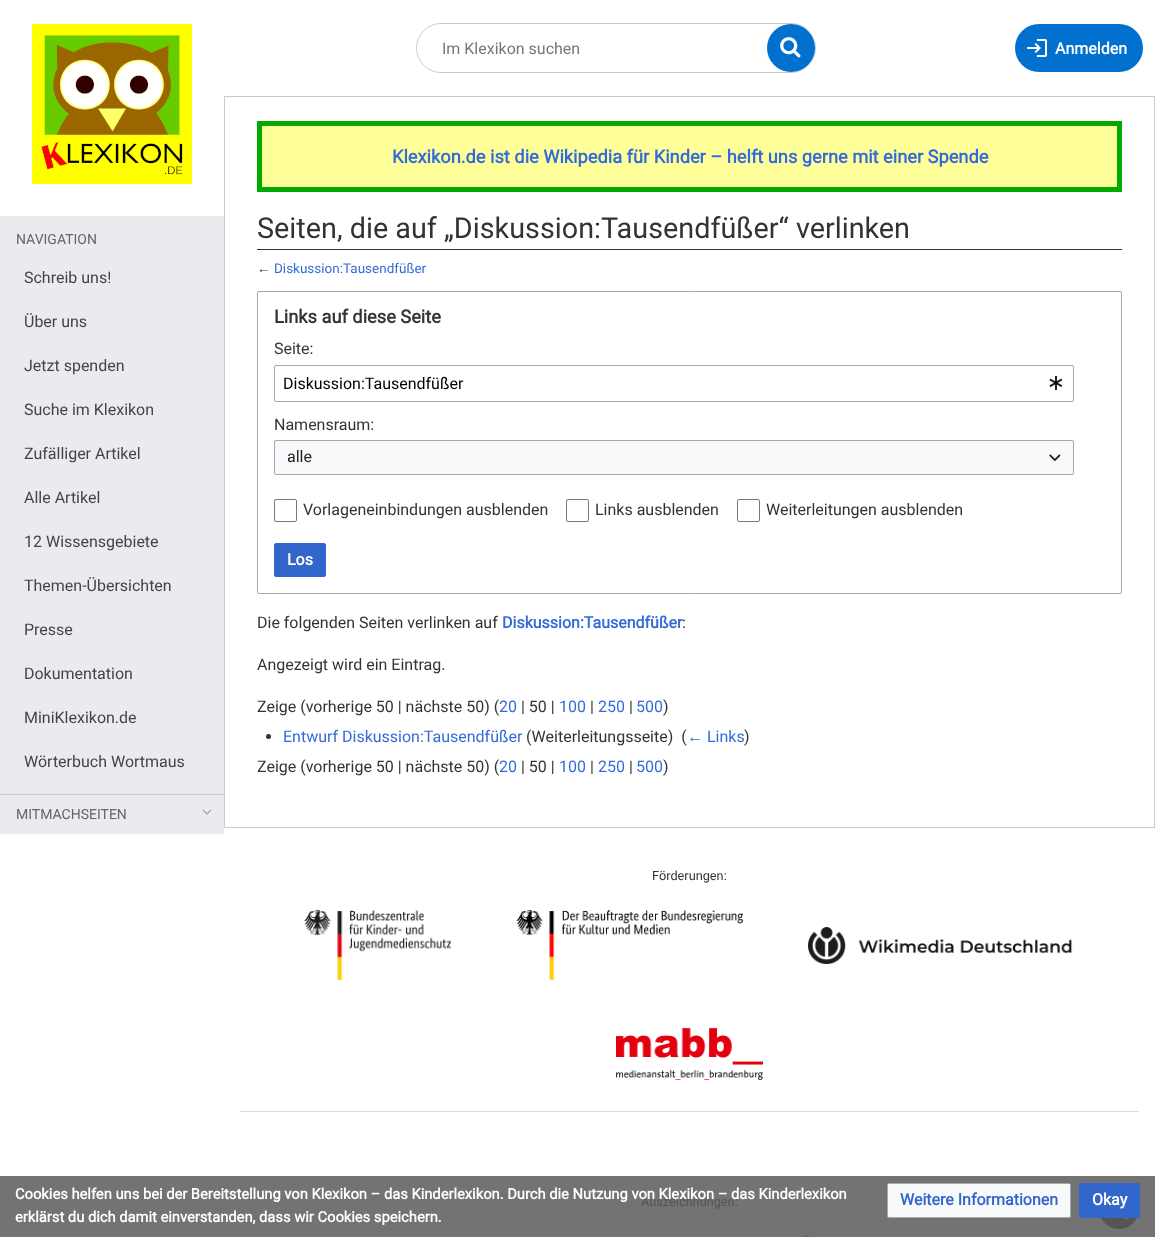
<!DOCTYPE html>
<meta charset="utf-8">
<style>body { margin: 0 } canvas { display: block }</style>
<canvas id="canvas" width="1155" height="1237"></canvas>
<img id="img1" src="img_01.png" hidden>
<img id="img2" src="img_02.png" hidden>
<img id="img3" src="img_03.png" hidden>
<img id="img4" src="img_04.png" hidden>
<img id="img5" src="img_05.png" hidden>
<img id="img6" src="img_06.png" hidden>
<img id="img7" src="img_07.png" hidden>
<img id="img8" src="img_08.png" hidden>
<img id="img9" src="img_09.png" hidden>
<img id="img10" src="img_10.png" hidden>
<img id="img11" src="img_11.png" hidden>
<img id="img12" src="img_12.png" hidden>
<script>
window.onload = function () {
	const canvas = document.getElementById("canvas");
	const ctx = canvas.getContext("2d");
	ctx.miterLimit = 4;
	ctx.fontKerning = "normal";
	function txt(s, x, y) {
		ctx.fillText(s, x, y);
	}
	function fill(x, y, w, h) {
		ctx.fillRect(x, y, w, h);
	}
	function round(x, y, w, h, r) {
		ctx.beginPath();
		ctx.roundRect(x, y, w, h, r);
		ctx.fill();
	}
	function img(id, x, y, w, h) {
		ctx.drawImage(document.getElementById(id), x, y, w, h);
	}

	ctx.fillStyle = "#FFFFFF";
	fill(0, 0, 1155, 1237);
	ctx.fillStyle = "#737373";
	fill(0, 1176, 1155, 61);
	img("img1", 32, 24, 160, 160);
	ctx.beginPath();
	ctx.roundRect(416.5, 23.5, 399, 49, 24.5);
	ctx.strokeStyle = "#C8CCD1";
	ctx.stroke();
	ctx.fillStyle = "#0170CE";
	ctx.beginPath();
	ctx.arc(791, 48, 24, 0, Math.PI * 2);
	ctx.fill();
	img("img2", 780, 37, 21, 21);
	round(1015, 24, 128, 48, 24);
	img("img3", 1027, 39, 20, 18);
	ctx.strokeRect(224.5, 96.5, 930, 731);
	ctx.fillStyle = "#FFFF99";
	ctx.beginPath();
	ctx.rect(259.5, 123.5, 860, 66);
	ctx.fill();
	ctx.strokeStyle = "#00AA00";
	ctx.lineWidth = 5;
	ctx.stroke();
	ctx.fillStyle = "#333333";
	fill(257, 249, 865, 1);
	ctx.beginPath();
	ctx.roundRect(257.5, 291.5, 864, 302, 1.5);
	ctx.strokeStyle = "#A2A9B1";
	ctx.lineWidth = 1;
	ctx.stroke();
	ctx.beginPath();
	ctx.roundRect(274.5, 365.5, 799, 36, 1.5);
	ctx.stroke();
	img("img4", 1049, 376, 14, 14);
	ctx.fillStyle = "#F8F9FA";
	fill(274, 440, 800, 35);
	ctx.beginPath();
	ctx.roundRect(274.5, 440.5, 799, 34, 1.5);
	ctx.stroke();
	img("img5", 1049, 454, 12, 8);
	ctx.beginPath();
	ctx.roundRect(274.5, 499.5, 22, 22, 1.5);
	ctx.strokeStyle = "#72777D";
	ctx.stroke();
	ctx.beginPath();
	ctx.roundRect(566.5, 499.5, 22, 22, 1.5);
	ctx.stroke();
	ctx.beginPath();
	ctx.roundRect(737.5, 499.5, 22, 22, 1.5);
	ctx.stroke();
	ctx.fillStyle = "#3366CC";
	ctx.beginPath();
	ctx.roundRect(274.5, 543.5, 51, 33, 1.5);
	ctx.fill();
	ctx.strokeStyle = "#3366CC";
	ctx.stroke();
	ctx.fillStyle = "#333333";
	ctx.beginPath();
	ctx.arc(268.5, 736.5, 2.5, 0, Math.PI * 2);
	ctx.fill();
	ctx.fillStyle = "#F8F9FA";
	ctx.beginPath();
	ctx.roundRect(887.5, 1183.5, 183, 34, 1.5);
	ctx.fill();
	ctx.strokeStyle = "#A2A9B1";
	ctx.stroke();
	ctx.fillStyle = "rgba(77, 77, 77, 0.8)";
	ctx.beginPath();
	ctx.arc(1119, 1209, 20, 0, Math.PI * 2);
	ctx.fill();
	ctx.fillStyle = "#3366CC";
	ctx.beginPath();
	ctx.roundRect(1079.5, 1183.5, 60, 34, 1.5);
	ctx.fill();
	ctx.strokeStyle = "#3366CC";
	ctx.stroke();
	ctx.fillStyle = "#E9EBEF";
	fill(0, 216, 224, 618);
	ctx.fillStyle = "#C8CCD1";
	fill(0, 794, 224, 1);
	img("img6", 202, 809, 10, 6);
	img("img7", 1124, 1218, 5, 2);
	img("img8", 304, 910, 147, 70);
	img("img9", 516, 910, 227, 70);
	img("img10", 808, 927, 265, 37);
	img("img11", 616, 1028, 147, 52);
	ctx.fillStyle = "#DDDDDD";
	fill(240, 1111, 899, 1);
	img("img12", 803, 1236, 7, 1);
	ctx.font = "16px Roboto";
	ctx.fillStyle = "#757575";
	txt("Im Klexikon suchen", 442, 54);
	ctx.font = "bold 16px Roboto";
	ctx.fillStyle = "#FFFFFF";
	txt("Anmelden", 1055, 54);
	ctx.font = "bold 18.25px Roboto";
	ctx.fillStyle = "#336BDA";
	txt("Klexikon.de ist die Wikipedia für Kinder – helft uns gerne mit einer Spende", 392, 163);
	ctx.font = "28.8px Roboto";
	ctx.fillStyle = "#333333";
	txt("Seiten, die auf „Diskussion:Tausendfüßer“ verlinken", 257, 238);
	ctx.font = "13.5px Liberation Sans";
	txt("←", 257, 273);
	ctx.font = "13.5px Roboto";
	ctx.fillStyle = "#336BDA";
	txt("Diskussion:Tausendfüßer", 274, 273);
	ctx.font = "bold 18.25px Roboto";
	ctx.fillStyle = "#333333";
	txt("Links auf diese Seite", 274, 323);
	ctx.font = "16px Roboto";
	txt("Seite:", 274, 354);
	ctx.fillStyle = "#000000";
	txt("Diskussion:Tausendfüßer", 283, 389);
	ctx.fillStyle = "#333333";
	txt("Namensraum:", 274, 430);
	ctx.fillStyle = "#202122";
	txt("alle", 287, 462);
	ctx.fillStyle = "#333333";
	txt("Vorlageneinbindungen ausblenden", 303, 515);
	txt("Links ausblenden", 595, 515);
	txt("Weiterleitungen ausblenden", 766, 515);
	ctx.font = "bold 16px Roboto";
	ctx.fillStyle = "#FFFFFF";
	txt("Los", 287, 565);
	ctx.font = "16px Roboto";
	ctx.fillStyle = "#333333";
	txt("Die folgenden Seiten verlinken auf", 257, 628);
	ctx.font = "bold 16px Roboto";
	ctx.fillStyle = "#336BDA";
	txt("Diskussion:Tausendfüßer", 502, 628);
	ctx.font = "16px Roboto";
	ctx.fillStyle = "#333333";
	txt(":", 682, 628);
	txt("Angezeigt wird ein Eintrag.", 257, 670);
	txt("Zeige (vorherige 50 | nächste 50) (", 257, 712);
	ctx.fillStyle = "#336BDA";
	txt("20", 499, 712);
	ctx.fillStyle = "#333333";
	txt("| 50 |", 521, 712);
	ctx.fillStyle = "#336BDA";
	txt("100", 559, 712);
	ctx.fillStyle = "#333333";
	txt("|", 590, 712);
	ctx.fillStyle = "#336BDA";
	txt("250", 598, 712);
	ctx.fillStyle = "#333333";
	txt("|", 629, 712);
	ctx.fillStyle = "#336BDA";
	txt("500", 636, 712);
	ctx.fillStyle = "#333333";
	txt(")", 663, 712);
	ctx.fillStyle = "#336BDA";
	txt("Entwurf Diskussion:Tausendfüßer", 283, 742);
	ctx.fillStyle = "#333333";
	txt("(Weiterleitungsseite)  (", 526, 742);
	ctx.fillStyle = "#336BDA";
	txt("Links", 707, 742);
	ctx.fillStyle = "#333333";
	txt(")", 744, 742);
	ctx.font = "16px Liberation Sans";
	ctx.fillStyle = "#336BDA";
	txt("←", 687, 742);
	ctx.font = "16px Roboto";
	ctx.fillStyle = "#333333";
	txt("Zeige (vorherige 50 | nächste 50) (", 257, 772);
	ctx.fillStyle = "#336BDA";
	txt("20", 499, 772);
	ctx.fillStyle = "#333333";
	txt("| 50 |", 521, 772);
	ctx.fillStyle = "#336BDA";
	txt("100", 559, 772);
	ctx.fillStyle = "#333333";
	txt("|", 590, 772);
	ctx.fillStyle = "#336BDA";
	txt("250", 598, 772);
	ctx.fillStyle = "#333333";
	txt("|", 629, 772);
	ctx.fillStyle = "#336BDA";
	txt("500", 636, 772);
	ctx.fillStyle = "#333333";
	txt(")", 663, 772);
	ctx.font = "bold 14.72px Roboto";
	ctx.fillStyle = "#FFFFFF";
	txt("erklärst du dich damit einverstanden, dass wir Cookies speichern.", 15, 1222);
	ctx.font = "bold 16px Roboto";
	ctx.fillStyle = "#3366CC";
	txt("Weitere Informationen", 900, 1205);
	ctx.fillStyle = "#FFFFFF";
	txt("Okay", 1092, 1205);
	ctx.font = "14px Roboto";
	ctx.fillStyle = "#666666";
	txt("NAVIGATION", 16, 244);
	ctx.font = "16px Roboto";
	ctx.fillStyle = "#444444";
	txt("Schreib uns!", 24, 283);
	txt("Über uns", 24, 327);
	txt("Jetzt spenden", 24, 371);
	txt("Suche im Klexikon", 24, 415);
	txt("Zufälliger Artikel", 24, 459);
	txt("Alle Artikel", 24, 503);
	txt("12 Wissensgebiete", 24, 547);
	txt("Themen-Übersichten", 24, 591);
	txt("Presse", 24, 635);
	txt("Dokumentation", 24, 679);
	txt("MiniKlexikon.de", 24, 723);
	txt("Wörterbuch Wortmaus", 24, 767);
	ctx.font = "14px Roboto";
	ctx.fillStyle = "#666666";
	txt("MITMACHSEITEN", 16, 819);
	ctx.font = "12.75px Roboto";
	ctx.fillStyle = "#333333";
	txt("Förderungen:", 652, 880);
	ctx.fillStyle = "#545454";
	txt("Auszeichnungen:", 641, 1206);
	ctx.font = "bold 14.72px Roboto";
	ctx.fillStyle = "#FFFFFF";
	txt("Cookies helfen uns bei der Bereitstellung von Klexikon – das Kinderlexikon. Durch die Nutzung von Klexikon – das Kinderlexikon", 15, 1199);
};
</script>
